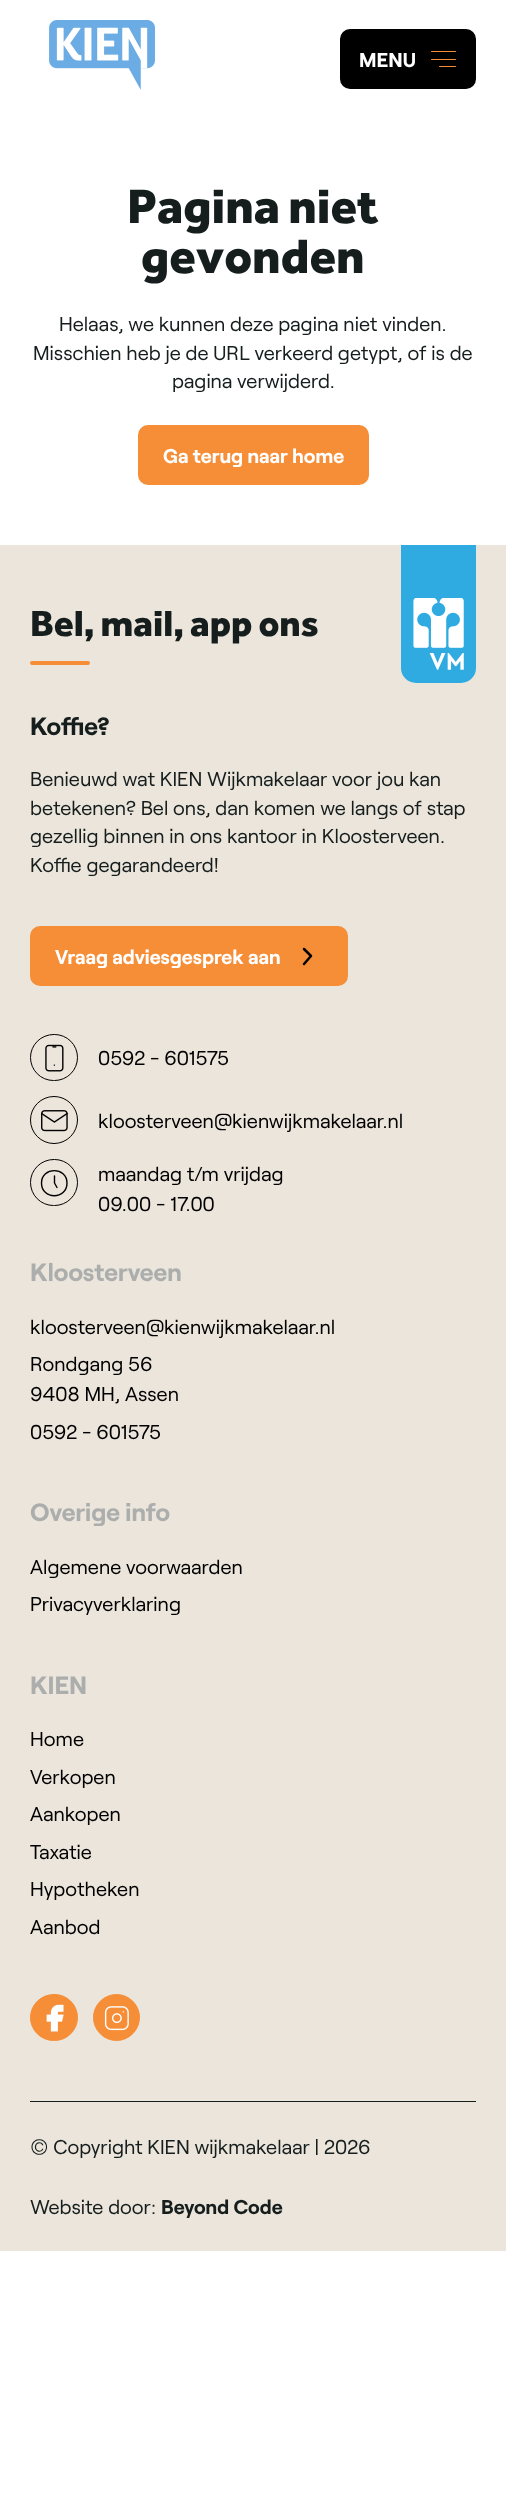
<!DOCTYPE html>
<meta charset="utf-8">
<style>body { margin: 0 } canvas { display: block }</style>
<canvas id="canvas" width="506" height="2506"></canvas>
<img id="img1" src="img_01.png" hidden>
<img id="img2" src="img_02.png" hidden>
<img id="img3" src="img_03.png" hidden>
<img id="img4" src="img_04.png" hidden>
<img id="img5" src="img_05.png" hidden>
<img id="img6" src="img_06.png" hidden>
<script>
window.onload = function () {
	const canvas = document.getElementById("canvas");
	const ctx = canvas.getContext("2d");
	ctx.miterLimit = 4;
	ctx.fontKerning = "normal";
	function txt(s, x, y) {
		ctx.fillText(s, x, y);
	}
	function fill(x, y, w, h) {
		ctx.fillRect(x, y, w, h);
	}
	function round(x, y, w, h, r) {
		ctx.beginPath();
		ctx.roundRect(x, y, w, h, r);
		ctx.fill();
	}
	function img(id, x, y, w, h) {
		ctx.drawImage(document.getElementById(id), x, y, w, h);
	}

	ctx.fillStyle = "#FFFFFF";
	fill(0, 0, 506, 2506);
	img("img1", 49, 20, 106, 70);
	ctx.fillStyle = "#000000";
	round(340, 29, 136, 60, 10);
	ctx.fillStyle = "#F68E37";
	round(431, 51, 25, 1, 0.5);
	round(431, 59, 25, 1, 0.5);
	round(439, 66, 17, 1, 0.5);
	ctx.beginPath();
	ctx.roundRect(139.5, 426.5, 228, 57, 8.5);
	ctx.fill();
	ctx.strokeStyle = "#F68E37";
	ctx.lineWidth = 3;
	ctx.stroke();
	ctx.fillStyle = "#EBE5DB";
	fill(0, 545, 506, 1706);
	ctx.fillStyle = "#F68E37";
	round(30, 661, 60, 4, 2);
	ctx.fillStyle = "#2FABE2";
	ctx.beginPath();
	ctx.roundRect(401, 545, 75, 138, [0, 0, 15, 15]);
	ctx.fill();
	img("img2", 413, 598, 51, 72);
	ctx.fillStyle = "#F68E37";
	ctx.beginPath();
	ctx.roundRect(31.5, 927.5, 315, 57, 8.5);
	ctx.fill();
	ctx.stroke();
	ctx.beginPath();
	ctx.moveTo(304, 949);
	ctx.lineTo(311, 956);
	ctx.lineTo(304, 964);
	ctx.strokeStyle = "#000000";
	ctx.lineWidth = 2.5;
	ctx.lineCap = "round";
	ctx.lineJoin = "round";
	ctx.stroke();
	ctx.beginPath();
	ctx.roundRect(30.5, 1034.5, 47, 46, 23);
	ctx.lineWidth = 1;
	ctx.lineJoin = "miter";
	ctx.stroke();
	img("img3", 45, 1044, 19, 28);
	ctx.beginPath();
	ctx.arc(54, 1120, 23.5, 0, Math.PI * 2);
	ctx.stroke();
	img("img4", 41, 1110, 27, 22);
	ctx.beginPath();
	ctx.roundRect(30.5, 1159.5, 47, 46, 23);
	ctx.stroke();
	ctx.beginPath();
	ctx.moveTo(41.5, 1183);
	ctx.bezierCurveTo(41.5, 1200, 67, 1200, 67, 1183);
	ctx.bezierCurveTo(67, 1166.5, 41.5, 1166.5, 41.5, 1183);
	ctx.closePath();
	ctx.moveTo(54.5, 1183);
	ctx.lineTo(57, 1187.5);
	ctx.moveTo(54.5, 1176);
	ctx.lineTo(54.5, 1183);
	ctx.lineWidth = 1.4;
	ctx.lineJoin = "round";
	ctx.stroke();
	ctx.beginPath();
	ctx.roundRect(30.5, 1994.5, 47, 46, 23);
	ctx.fill();
	ctx.strokeStyle = "#F68E37";
	ctx.lineWidth = 1;
	ctx.lineJoin = "miter";
	ctx.stroke();
	img("img5", 46, 2004, 18, 28);
	ctx.beginPath();
	ctx.arc(116.5, 2017.5, 23, 0, Math.PI * 2);
	ctx.fill();
	ctx.stroke();
	img("img6", 104, 2006, 25, 25);
	ctx.fillStyle = "#151D1D";
	fill(30, 2101, 446, 1);
	ctx.font = "bold 20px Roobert";
	ctx.fillStyle = "#FFFFFF";
	txt("MENU", 359, 67);
	ctx.font = "900 50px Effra";
	ctx.fillStyle = "#151D1D";
	txt("Pagina niet", 127, 223);
	txt("gevonden", 141, 273);
	ctx.font = "20px Roobert";
	txt("Helaas, we kunnen deze pagina niet vinden.", 59, 331);
	txt("Misschien heb je de URL verkeerd getypt, of is de", 33, 360);
	txt("pagina verwijderd.", 172, 388);
	ctx.font = "bold 20px Roobert";
	ctx.fillStyle = "#FFFFFF";
	txt("Ga terug naar home", 163, 463);
	ctx.font = "900 37.5px Effra";
	ctx.fillStyle = "#151D1D";
	txt("Bel, mail, app ons", 30, 636);
	ctx.font = "bold 25px Roobert";
	txt("Koffie?", 30, 735);
	ctx.font = "20px Roobert";
	txt("Benieuwd wat KIEN Wijkmakelaar voor jou kan", 30, 786);
	txt("betekenen? Bel ons, dan komen we langs of stap", 30, 815);
	txt("gezellig binnen in ons kantoor in Kloosterveen.", 30, 843);
	txt("Koffie gegarandeerd!", 30, 872);
	ctx.font = "bold 20px Roobert";
	ctx.fillStyle = "#FFFFFF";
	txt("Vraag adviesgesprek aan", 55, 964);
	ctx.font = "20px Roobert";
	ctx.fillStyle = "#000000";
	txt("0592 - 601575", 98, 1065);
	txt("kloosterveen@kienwijkmakelaar.nl", 98, 1128);
	txt("maandag t/m vrijdag", 98, 1181);
	txt("09.00 - 17.00", 98, 1211);
	ctx.font = "bold 25px Roobert";
	ctx.fillStyle = "#ACAEAE";
	txt("Kloosterveen", 30, 1281);
	ctx.font = "20px Roobert";
	ctx.fillStyle = "#000000";
	txt("kloosterveen@kienwijkmakelaar.nl", 30, 1334);
	txt("Rondgang 56", 30, 1371);
	txt("9408 MH, Assen", 30, 1401);
	txt("0592 - 601575", 30, 1439);
	ctx.font = "bold 25px Roobert";
	ctx.fillStyle = "#ACAEAE";
	txt("Overige info", 30, 1521);
	ctx.font = "20px Roobert";
	ctx.fillStyle = "#000000";
	txt("Algemene voorwaarden", 30, 1574);
	txt("Privacyverklaring", 30, 1611);
	ctx.font = "bold 25px Roobert";
	ctx.fillStyle = "#ACAEAE";
	txt("KIEN", 30, 1694);
	ctx.font = "20px Roobert";
	ctx.fillStyle = "#000000";
	txt("Home", 30, 1746);
	txt("Verkopen", 30, 1784);
	txt("Aankopen", 30, 1821);
	txt("Taxatie", 30, 1859);
	txt("Hypotheken", 30, 1896);
	txt("Aanbod", 30, 1934);
	ctx.fillStyle = "#151D1D";
	txt("© Copyright KIEN wijkmakelaar | 2026", 30, 2154);
	txt("Website door:", 30, 2214);
	ctx.font = "bold 20px Roobert";
	txt("Beyond Code", 161, 2214);
};
</script>
